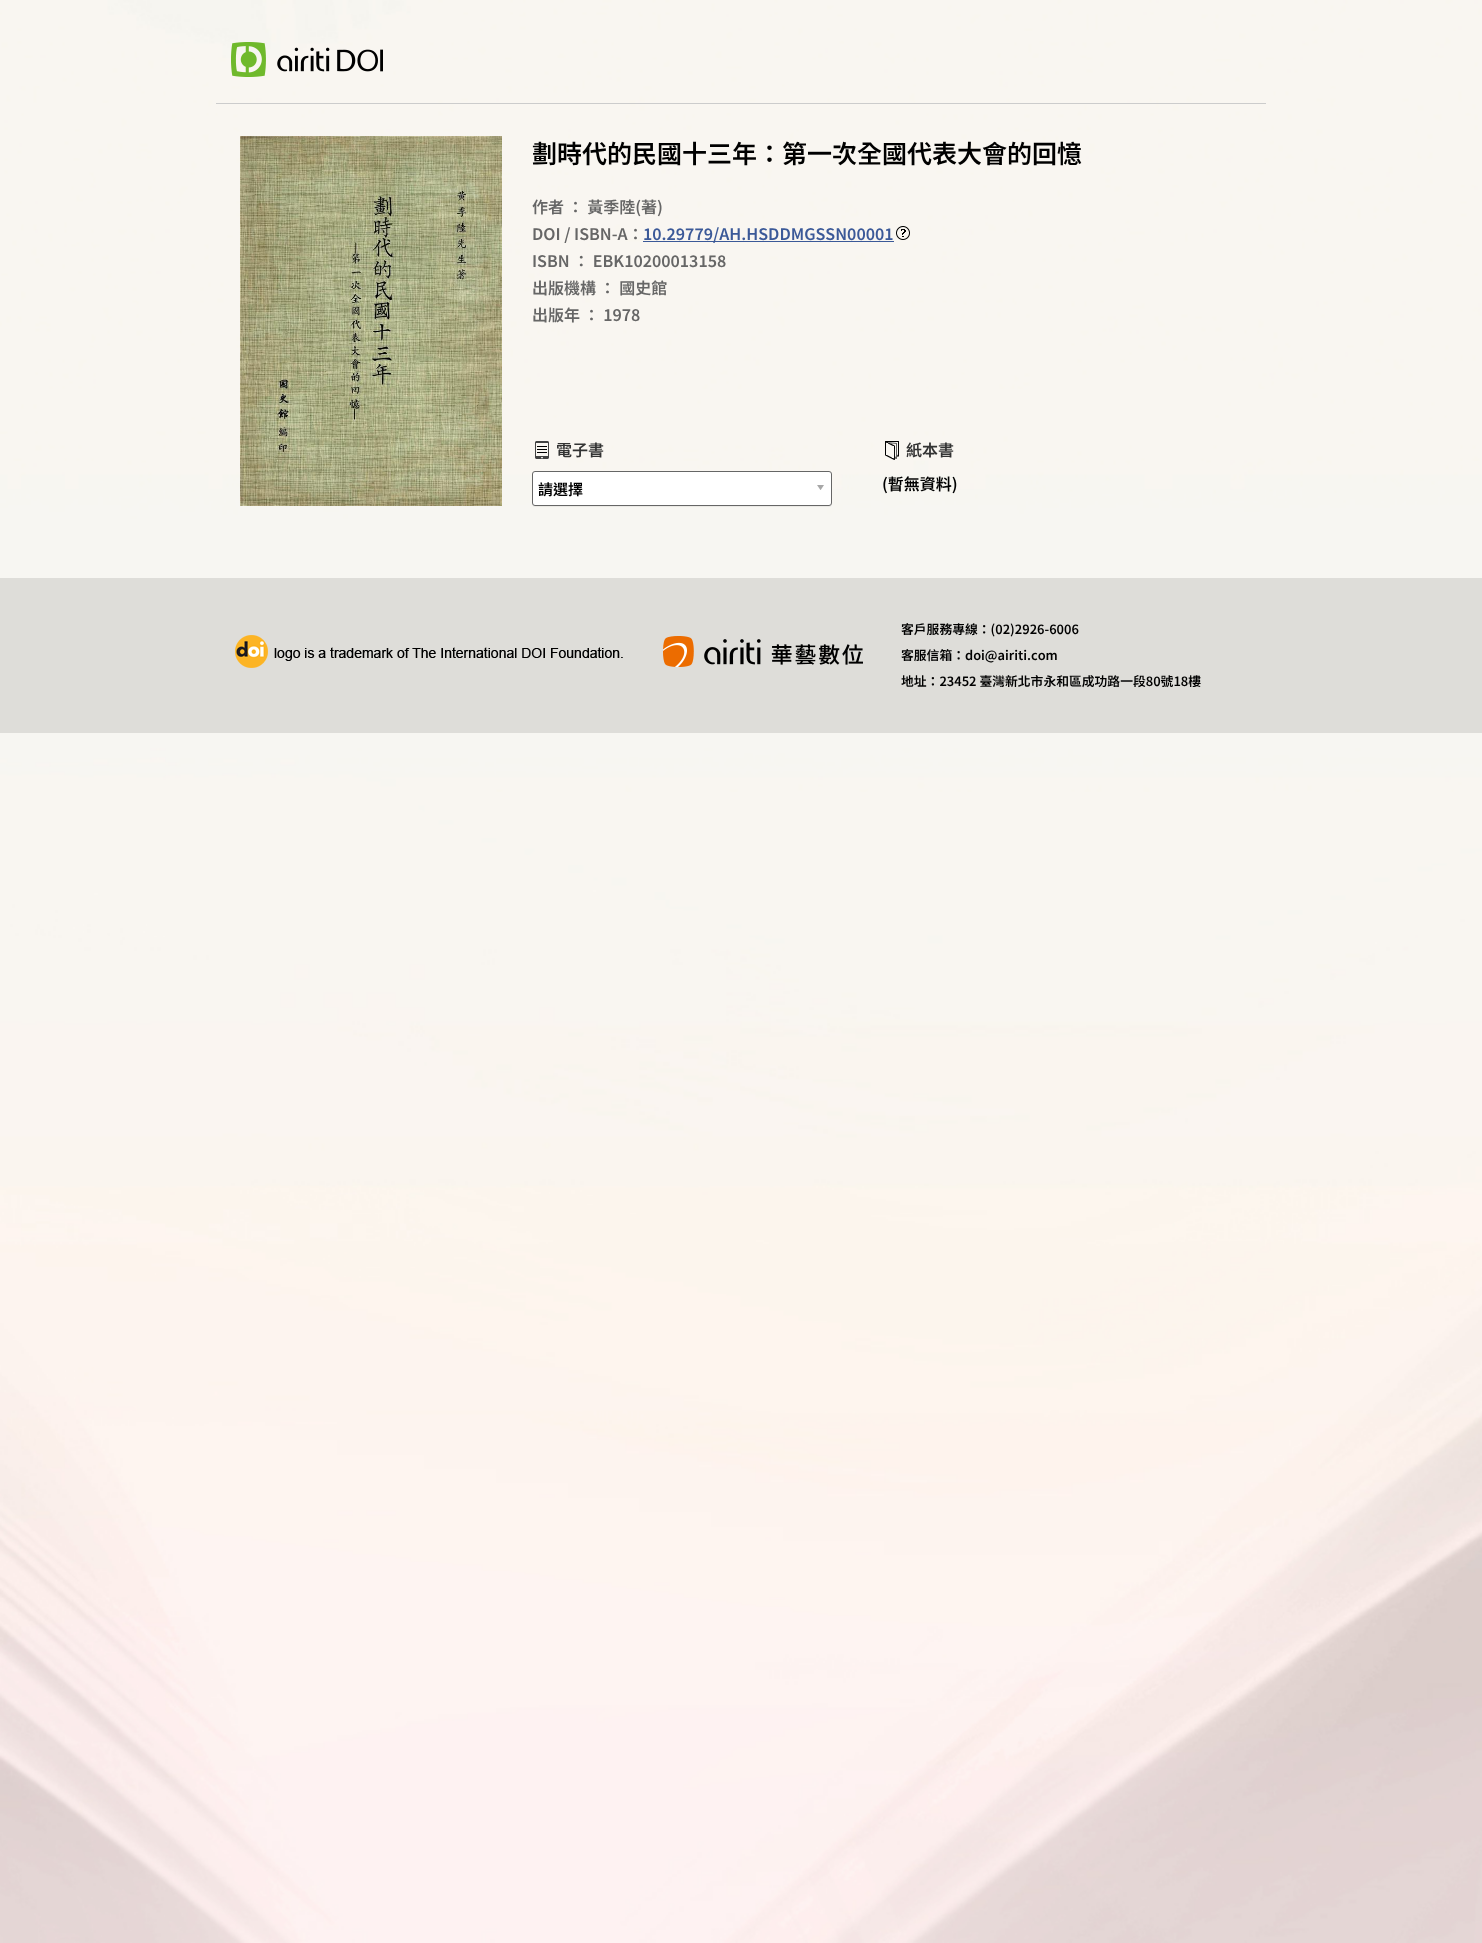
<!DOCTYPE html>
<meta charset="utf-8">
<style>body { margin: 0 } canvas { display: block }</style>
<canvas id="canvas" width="1482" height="1943"></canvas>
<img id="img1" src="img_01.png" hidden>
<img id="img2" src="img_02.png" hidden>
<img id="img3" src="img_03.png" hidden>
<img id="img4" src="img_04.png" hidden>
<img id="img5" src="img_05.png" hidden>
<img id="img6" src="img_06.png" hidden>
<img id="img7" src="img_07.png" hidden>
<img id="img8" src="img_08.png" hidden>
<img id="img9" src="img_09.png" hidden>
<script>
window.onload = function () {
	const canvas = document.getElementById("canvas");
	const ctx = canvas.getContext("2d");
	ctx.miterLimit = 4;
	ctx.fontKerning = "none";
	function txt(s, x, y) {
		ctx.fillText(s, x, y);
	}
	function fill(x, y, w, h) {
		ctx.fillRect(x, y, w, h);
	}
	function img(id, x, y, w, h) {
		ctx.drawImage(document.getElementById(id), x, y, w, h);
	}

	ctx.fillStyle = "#FFFFFF";
	fill(0, 0, 1482, 1943);
	img("img1", 0, 0, 1482, 1943);
	ctx.fillStyle = "#CCCCCC";
	fill(216, 103, 1050, 1);
	img("img2", 231, 42, 152, 35);
	img("img3", 240, 136, 262, 370);
	ctx.fillStyle = "#3B5998";
	fill(643, 241, 251, 1);
	img("img4", 896, 226, 14, 14);
	img("img5", 535, 441, 14, 18);
	ctx.fillStyle = "rgba(0, 0, 0, 0.05)";
	ctx.filter = "blur(0.5px)";
	ctx.beginPath();
	ctx.roundRect(532, 472, 300, 35, 3);
	ctx.fill();
	ctx.filter = "none";
	ctx.fillStyle = "#FFFFFF";
	ctx.beginPath();
	ctx.roundRect(532.5, 471.5, 299, 34, 2.5);
	ctx.fill();
	ctx.strokeStyle = "#666666";
	ctx.stroke();
	img("img6", 817, 485, 7, 5);
	img("img7", 885, 441, 14, 19);
	ctx.fillStyle = "#DEDDD9";
	fill(0, 578, 1482, 155);
	img("img8", 235, 635, 388, 33);
	img("img9", 663, 636, 200, 31);
	ctx.font = "600 25px Noto Sans TC";
	ctx.fillStyle = "#000000";
	txt("劃時代的民國十三年：第一次全國代表大會的回憶", 532, 163);
	ctx.font = "600 16px Noto Sans TC";
	ctx.fillStyle = "#666666";
	txt("作者 ： 黃季陸(著)", 532, 213);
	txt("DOI / ISBN-A：", 532, 240);
	ctx.fillStyle = "#3B5998";
	txt("10.29779/AH.HSDDMGSSN00001", 643, 240);
	ctx.fillStyle = "#666666";
	txt("ISBN ： EBK10200013158", 532, 267);
	txt("出版機構 ： 國史館", 532, 294);
	txt("出版年 ： 1978", 532, 321);
	ctx.fillStyle = "#333333";
	txt("電子書", 556, 456);
	ctx.font = "600 15px Noto Sans TC";
	ctx.fillStyle = "#000000";
	txt("請選擇", 538, 495);
	ctx.font = "600 16px Noto Sans TC";
	ctx.fillStyle = "#333333";
	txt("紙本書", 906, 456);
	ctx.fillStyle = "#000000";
	txt("(暫無資料)", 882, 490);
	ctx.font = "600 12.8px Noto Sans TC";
	txt("客戶服務專線：(02)2926-6006", 901, 634);
	txt("客服信箱：doi@airiti.com", 901, 660);
	txt("地址：23452 臺灣新北市永和區成功路一段80號18樓", 901, 686);
};
</script>
